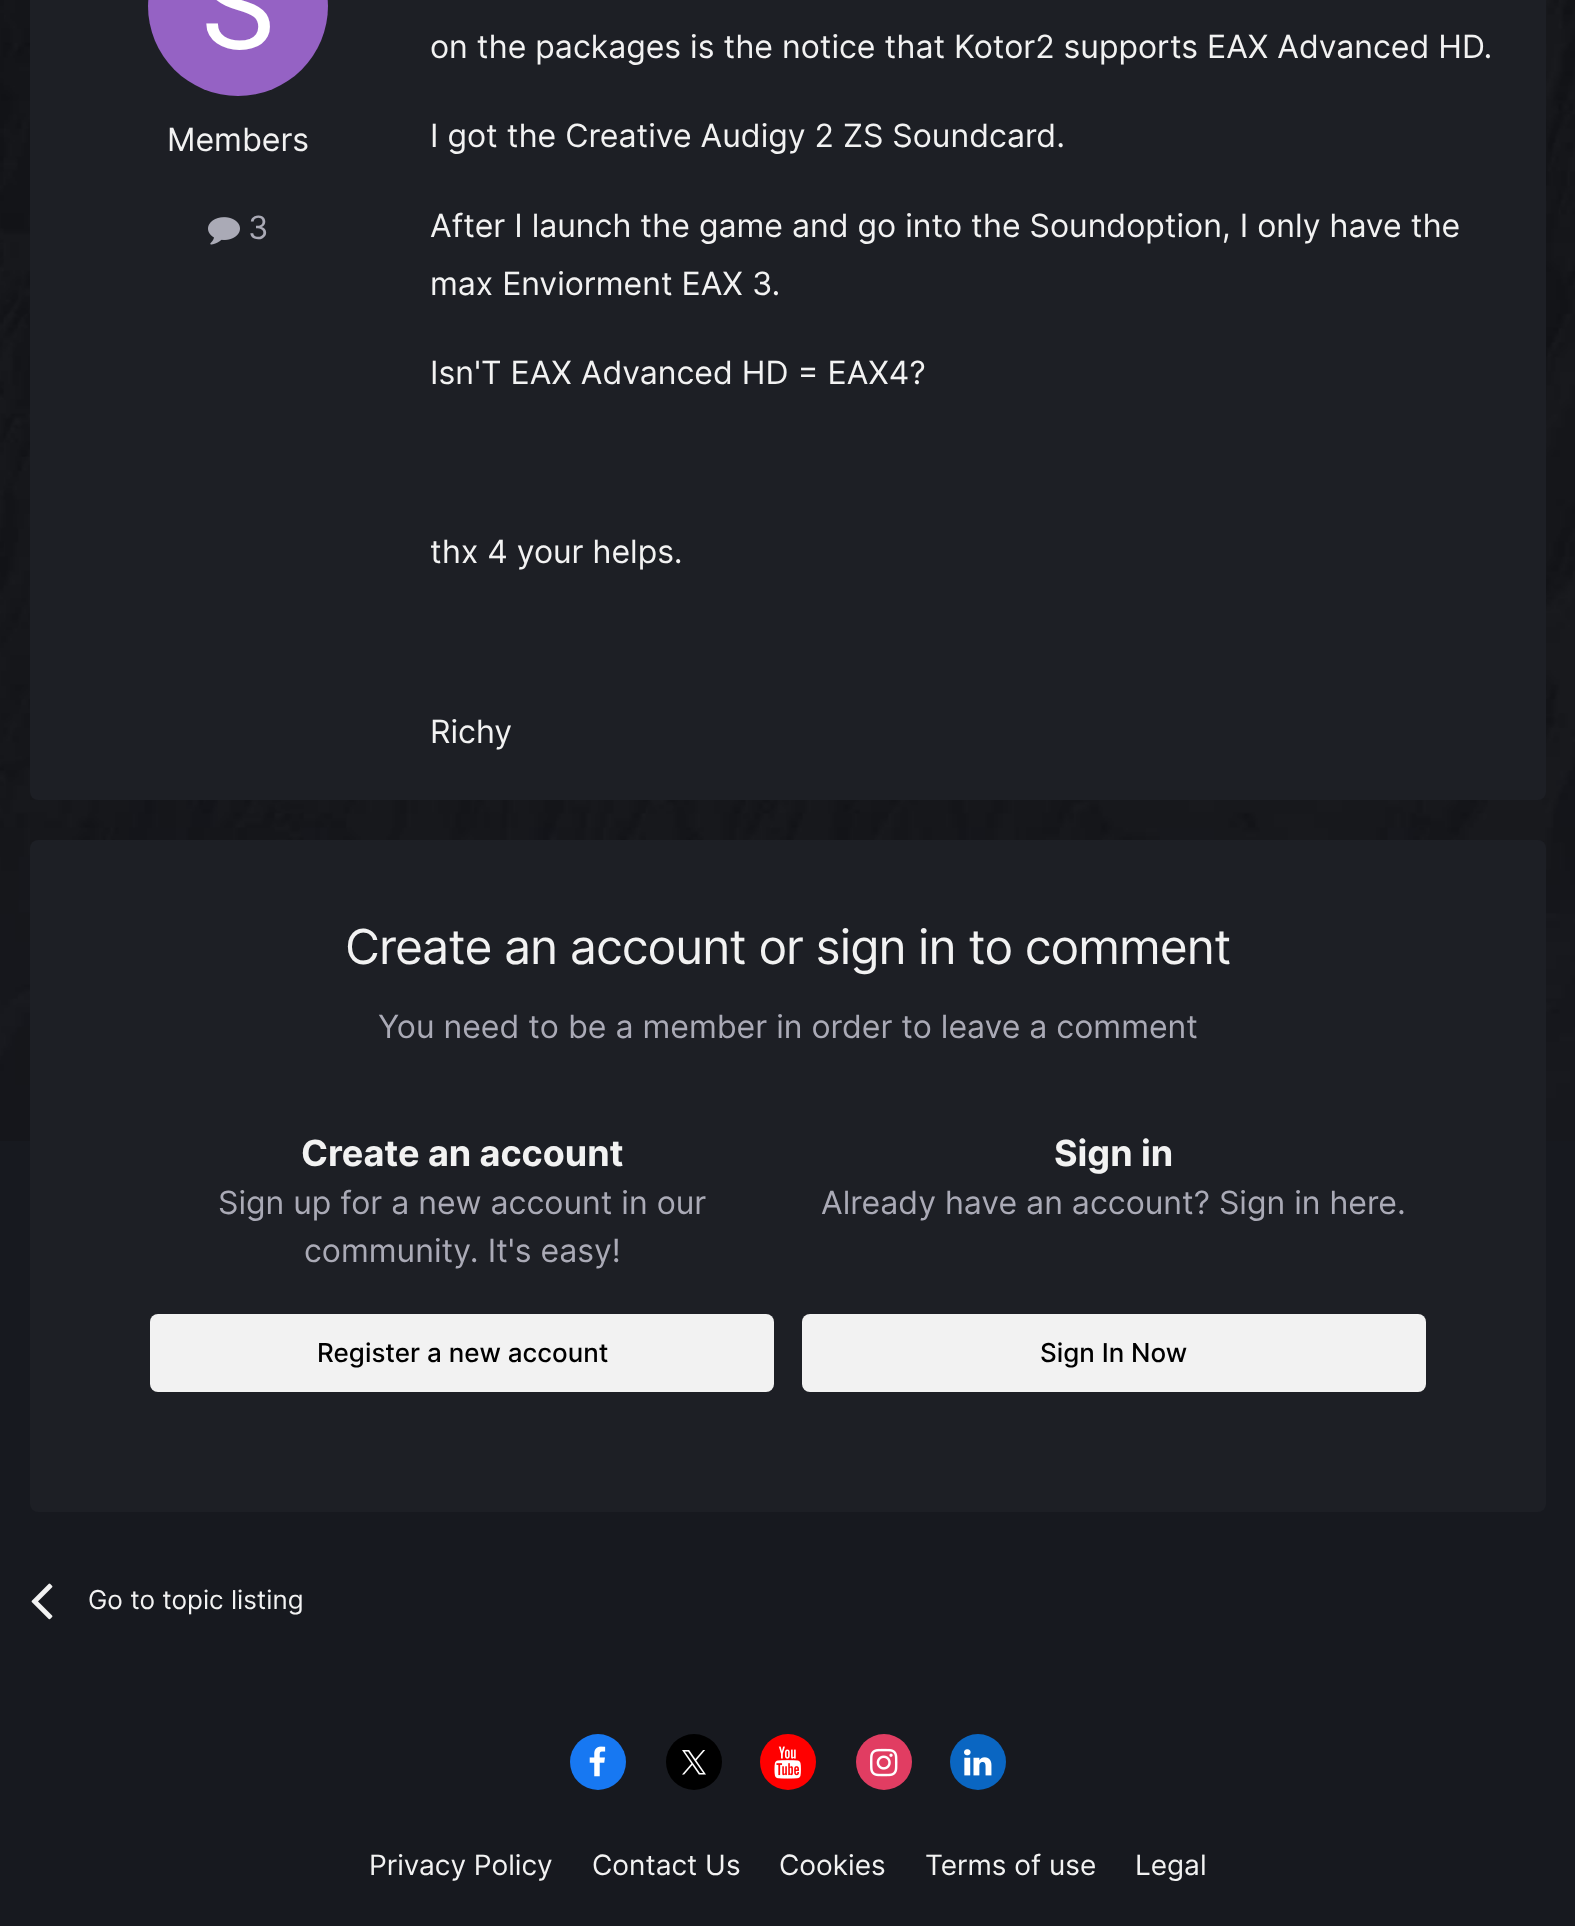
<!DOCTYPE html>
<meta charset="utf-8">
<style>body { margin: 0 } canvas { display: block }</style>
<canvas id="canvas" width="1575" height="1926"></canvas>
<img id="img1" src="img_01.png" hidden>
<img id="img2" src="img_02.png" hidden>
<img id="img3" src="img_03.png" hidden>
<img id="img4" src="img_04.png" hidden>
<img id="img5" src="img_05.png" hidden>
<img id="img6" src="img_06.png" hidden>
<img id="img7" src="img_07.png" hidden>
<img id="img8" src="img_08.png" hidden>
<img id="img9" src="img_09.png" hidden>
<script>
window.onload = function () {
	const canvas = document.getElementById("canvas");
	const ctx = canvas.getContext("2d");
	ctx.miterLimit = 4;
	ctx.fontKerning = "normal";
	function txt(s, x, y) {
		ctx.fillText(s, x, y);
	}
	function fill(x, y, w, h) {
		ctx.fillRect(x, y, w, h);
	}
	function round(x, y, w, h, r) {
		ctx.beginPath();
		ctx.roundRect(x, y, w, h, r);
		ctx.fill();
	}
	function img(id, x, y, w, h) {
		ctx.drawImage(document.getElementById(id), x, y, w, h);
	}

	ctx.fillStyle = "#17191F";
	fill(0, 0, 1575, 1926);
	img("img1", 0, 0, 1575, 1141);
	ctx.fillStyle = "#1D1F25";
	round(30, -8, 1516, 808, 8);
	img("img2", 148, 0, 180, 96);
	img("img3", 208, 217, 32, 28);
	round(30, 840, 1516, 672, 8);
	ctx.fillStyle = "#F2F2F2";
	round(150, 1314, 624, 78, 8);
	round(802, 1314, 624, 78, 8);
	img("img4", 31, 1583, 22, 37);
	ctx.fillStyle = "#1778F2";
	ctx.beginPath();
	ctx.arc(598, 1762, 28, 0, Math.PI * 2);
	ctx.fill();
	img("img5", 589, 1746, 17, 31);
	ctx.fillStyle = "#000000";
	ctx.beginPath();
	ctx.arc(694, 1762, 28, 0, Math.PI * 2);
	ctx.fill();
	img("img6", 682, 1750, 24, 25);
	ctx.fillStyle = "#FF0000";
	ctx.beginPath();
	ctx.arc(788, 1762, 28, 0, Math.PI * 2);
	ctx.fill();
	img("img7", 774, 1746, 27, 33);
	ctx.fillStyle = "#E13D62";
	ctx.beginPath();
	ctx.arc(884, 1762, 28, 0, Math.PI * 2);
	ctx.fill();
	img("img8", 870, 1748, 28, 29);
	ctx.fillStyle = "#0A66C2";
	ctx.beginPath();
	ctx.arc(978, 1762, 28, 0, Math.PI * 2);
	ctx.fill();
	img("img9", 964, 1749, 28, 27);
	ctx.font = "32px Inter";
	ctx.fillStyle = "#F2F2F2";
	txt("Members", 167, 151);
	ctx.fillStyle = "#AAAAB6";
	txt("3", 248, 239);
	ctx.fillStyle = "#F2F2F2";
	txt("on the packages is the notice that Kotor2 supports EAX Advanced HD.", 430, 58);
	txt("I got the Creative Audigy 2 ZS Soundcard.", 430, 147);
	txt("After I launch the game and go into the Soundoption, I only have the", 430, 237);
	txt("max Enviorment EAX 3.", 430, 295);
	txt("Isn'T EAX Advanced HD = EAX4?", 430, 384);
	txt("thx 4 your helps.", 430, 563);
	txt("Richy", 430, 743);
	ctx.letterSpacing = "-0.95px";
	ctx.font = "48px Inter";
	txt("Create an account or sign in to comment", 345, 964);
	ctx.letterSpacing = "0px";
	ctx.font = "32px Inter";
	ctx.fillStyle = "#AAAAB6";
	txt("You need to be a member in order to leave a comment", 378, 1038);
	ctx.font = "bold 36px Inter";
	ctx.fillStyle = "#F2F2F2";
	txt("Create an account", 301, 1166);
	ctx.font = "32px Inter";
	ctx.fillStyle = "#AAAAB6";
	txt("Sign up for a new account in our", 218, 1214);
	txt("community. It's easy!", 304, 1262);
	ctx.font = "500 26px Inter";
	ctx.fillStyle = "#000000";
	txt("Register a new account", 317, 1362);
	ctx.font = "bold 36px Inter";
	ctx.fillStyle = "#F2F2F2";
	txt("Sign in", 1054, 1166);
	ctx.font = "32px Inter";
	ctx.fillStyle = "#AAAAB6";
	txt("Already have an account? Sign in here.", 821, 1214);
	ctx.font = "500 26px Inter";
	ctx.fillStyle = "#000000";
	txt("Sign In Now", 1040, 1362);
	ctx.font = "26px Inter";
	ctx.fillStyle = "#F2F2F2";
	txt("Go to topic listing", 88, 1609);
	ctx.font = "28px Inter";
	txt("Privacy Policy", 369, 1875);
	txt("Contact Us", 592, 1875);
	txt("Cookies", 779, 1875);
	txt("Terms of use", 925, 1875);
	txt("Legal", 1135, 1875);
};
</script>
